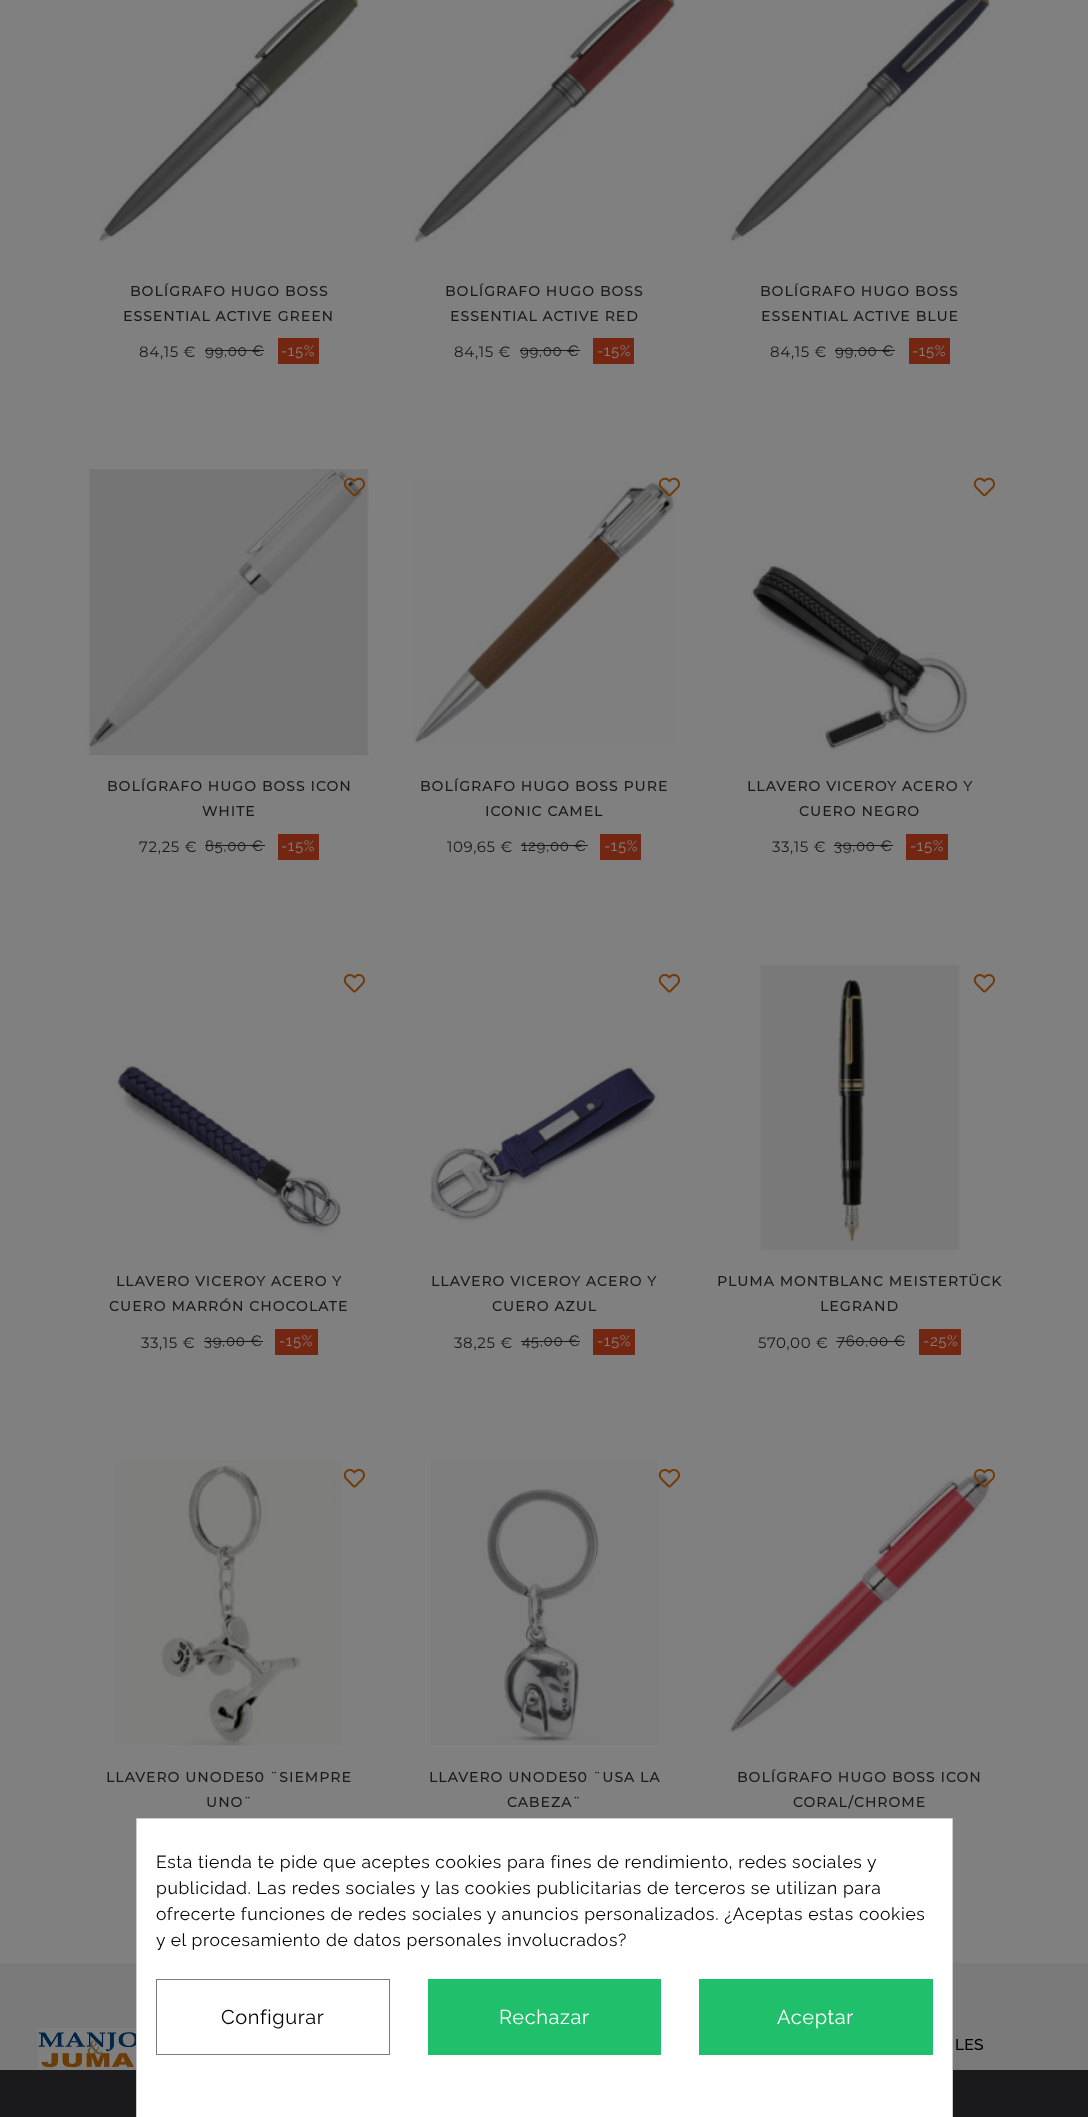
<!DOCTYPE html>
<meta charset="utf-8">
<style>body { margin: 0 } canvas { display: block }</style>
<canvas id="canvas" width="1088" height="2117"></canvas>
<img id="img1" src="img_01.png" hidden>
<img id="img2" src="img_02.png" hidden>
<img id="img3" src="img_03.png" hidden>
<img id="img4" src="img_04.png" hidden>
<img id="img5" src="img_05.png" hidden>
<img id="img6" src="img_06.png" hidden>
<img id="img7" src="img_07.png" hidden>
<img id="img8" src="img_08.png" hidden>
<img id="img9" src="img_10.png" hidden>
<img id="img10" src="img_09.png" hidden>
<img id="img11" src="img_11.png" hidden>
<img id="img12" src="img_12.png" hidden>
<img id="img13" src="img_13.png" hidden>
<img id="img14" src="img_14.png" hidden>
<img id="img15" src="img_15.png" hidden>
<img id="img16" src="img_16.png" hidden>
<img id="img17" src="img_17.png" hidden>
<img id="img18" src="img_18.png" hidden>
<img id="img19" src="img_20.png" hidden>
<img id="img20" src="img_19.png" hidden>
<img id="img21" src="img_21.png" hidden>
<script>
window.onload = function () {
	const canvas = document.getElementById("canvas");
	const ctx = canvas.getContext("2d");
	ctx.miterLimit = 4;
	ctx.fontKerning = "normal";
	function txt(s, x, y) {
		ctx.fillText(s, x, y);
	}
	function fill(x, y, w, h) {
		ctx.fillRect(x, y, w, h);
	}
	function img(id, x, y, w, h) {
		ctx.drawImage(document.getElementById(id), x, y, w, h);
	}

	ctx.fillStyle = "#808080";
	fill(0, 0, 1088, 2117);
	img("img1", 99, 0, 261, 242);
	img("img2", 352, 0, 5, 2);
	ctx.fillStyle = "#191919";
	fill(205, 350, 59, 1);
	ctx.fillStyle = "#732713";
	fill(278, 338, 41, 26);
	img("img3", 413, 0, 263, 243);
	img("img4", 667, 0, 5, 2);
	ctx.fillStyle = "#191919";
	fill(520, 350, 60, 1);
	ctx.fillStyle = "#732713";
	fill(593, 338, 41, 26);
	img("img5", 728, 0, 263, 242);
	img("img6", 982, 0, 5, 2);
	ctx.fillStyle = "#191919";
	fill(835, 350, 60, 1);
	ctx.fillStyle = "#732713";
	fill(909, 338, 41, 26);
	img("img7", 86, 469, 283, 287);
	img("img8", 343, 477, 22, 20);
	ctx.fillStyle = "#191919";
	fill(205, 845, 60, 1);
	ctx.fillStyle = "#732713";
	fill(278, 834, 41, 26);
	img("img9", 413, 482, 263, 262);
	img("img10", 658, 477, 22, 20);
	ctx.fillStyle = "#191919";
	fill(521, 845, 67, 1);
	ctx.fillStyle = "#732713";
	fill(600, 834, 41, 26);
	img("img11", 973, 477, 22, 20);
	img("img12", 751, 563, 217, 190);
	ctx.fillStyle = "#191919";
	fill(834, 845, 59, 1);
	ctx.fillStyle = "#732713";
	fill(906, 834, 42, 26);
	img("img13", 343, 974, 22, 19);
	img("img14", 115, 1065, 227, 170);
	ctx.fillStyle = "#191919";
	fill(204, 1341, 59, 1);
	ctx.fillStyle = "#732713";
	fill(275, 1329, 43, 26);
	img("img13", 658, 974, 22, 19);
	img("img15", 430, 1065, 228, 158);
	ctx.fillStyle = "#191919";
	fill(521, 1341, 59, 1);
	ctx.fillStyle = "#732713";
	fill(593, 1329, 42, 26);
	img("img16", 760, 965, 200, 285);
	img("img13", 973, 974, 22, 19);
	ctx.fillStyle = "#191919";
	fill(836, 1341, 69, 1);
	ctx.fillStyle = "#732713";
	fill(919, 1329, 42, 26);
	img("img17", 115, 1460, 227, 286);
	img("img13", 343, 1469, 22, 19);
	img("img18", 431, 1460, 227, 285);
	img("img13", 658, 1469, 22, 19);
	img("img19", 729, 1472, 262, 261);
	img("img20", 973, 1469, 22, 19);
	ctx.fillStyle = "#1A1A1D";
	fill(0, 2070, 1088, 47);
	ctx.fillStyle = "#7A7A7A";
	fill(0, 1963, 1088, 107);
	ctx.fillStyle = "#FFFFFF";
	ctx.beginPath();
	ctx.rect(136.5, 1818.5, 816, 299);
	ctx.fill();
	ctx.strokeStyle = "#CCCCCC";
	ctx.stroke();
	ctx.strokeStyle = "#7A7A7A";
	ctx.strokeRect(156.5, 1979.5, 233, 75);
	ctx.fillStyle = "#20BF6B";
	fill(428, 1979, 233, 76);
	fill(699, 1979, 234, 76);
	img("img21", 37, 2028, 99, 42);
	ctx.letterSpacing = "1.25px";
	ctx.font = "bold 13.75px Montserrat";
	ctx.fillStyle = "#191919";
	txt("BOLÍGRAFO HUGO BOSS", 130, 296);
	txt("ESSENTIAL ACTIVE GREEN", 123, 321);
	ctx.letterSpacing = "0.62px";
	ctx.font = "100 15px Montserrat";
	txt("84,15 €", 139, 357);
	ctx.font = "100 15px Raleway";
	txt("99,00 €", 205, 356);
	ctx.fillStyle = "#808080";
	txt("-15%", 281, 356);
	ctx.letterSpacing = "1.25px";
	ctx.font = "bold 13.75px Montserrat";
	ctx.fillStyle = "#191919";
	txt("BOLÍGRAFO HUGO BOSS", 445, 296);
	txt("ESSENTIAL ACTIVE RED", 450, 321);
	ctx.letterSpacing = "0.62px";
	ctx.font = "100 15px Montserrat";
	txt("84,15 €", 454, 357);
	ctx.font = "100 15px Raleway";
	txt("99,00 €", 520, 356);
	ctx.fillStyle = "#808080";
	txt("-15%", 597, 356);
	ctx.letterSpacing = "1.25px";
	ctx.font = "bold 13.75px Montserrat";
	ctx.fillStyle = "#191919";
	txt("BOLÍGRAFO HUGO BOSS", 760, 296);
	txt("ESSENTIAL ACTIVE BLUE", 761, 321);
	ctx.letterSpacing = "0.62px";
	ctx.font = "100 15px Montserrat";
	txt("84,15 €", 770, 357);
	ctx.font = "100 15px Raleway";
	txt("99,00 €", 835, 356);
	ctx.fillStyle = "#808080";
	txt("-15%", 912, 356);
	ctx.letterSpacing = "1.25px";
	ctx.font = "bold 13.75px Montserrat";
	ctx.fillStyle = "#191919";
	txt("BOLÍGRAFO HUGO BOSS ICON", 107, 791);
	txt("WHITE", 202, 816);
	ctx.letterSpacing = "0.62px";
	ctx.font = "100 15px Montserrat";
	txt("72,25 €", 139, 852);
	ctx.font = "100 15px Raleway";
	txt("85,00 €", 205, 851);
	ctx.fillStyle = "#808080";
	txt("-15%", 281, 851);
	ctx.letterSpacing = "1.25px";
	ctx.font = "bold 13.75px Montserrat";
	ctx.fillStyle = "#191919";
	txt("BOLÍGRAFO HUGO BOSS PURE", 420, 791);
	txt("ICONIC CAMEL", 485, 816);
	ctx.letterSpacing = "0.62px";
	ctx.font = "100 15px Montserrat";
	txt("109,65 €", 447, 852);
	ctx.font = "100 15px Raleway";
	txt("129,00 €", 521, 851);
	ctx.fillStyle = "#808080";
	txt("-15%", 604, 851);
	ctx.letterSpacing = "1.25px";
	ctx.font = "bold 13.75px Montserrat";
	ctx.fillStyle = "#191919";
	txt("LLAVERO VICEROY ACERO Y", 747, 791);
	txt("CUERO NEGRO", 799, 816);
	ctx.letterSpacing = "0.62px";
	ctx.font = "100 15px Montserrat";
	txt("33,15 €", 772, 852);
	ctx.font = "100 15px Raleway";
	txt("39,00 €", 834, 851);
	ctx.fillStyle = "#808080";
	txt("-15%", 910, 851);
	ctx.letterSpacing = "1.25px";
	ctx.font = "bold 13.75px Montserrat";
	ctx.fillStyle = "#191919";
	txt("LLAVERO VICEROY ACERO Y", 116, 1286);
	txt("CUERO MARRÓN CHOCOLATE", 109, 1311);
	ctx.letterSpacing = "0.62px";
	ctx.font = "100 15px Montserrat";
	txt("33,15 €", 141, 1348);
	ctx.font = "100 15px Raleway";
	txt("39,00 €", 204, 1346);
	ctx.fillStyle = "#808080";
	txt("-15%", 279, 1346);
	ctx.letterSpacing = "1.25px";
	ctx.font = "bold 13.75px Montserrat";
	ctx.fillStyle = "#191919";
	txt("LLAVERO VICEROY ACERO Y", 431, 1286);
	txt("CUERO AZUL", 492, 1311);
	ctx.letterSpacing = "0.62px";
	ctx.font = "100 15px Montserrat";
	txt("38,25 €", 454, 1348);
	ctx.font = "100 15px Raleway";
	txt("45,00 €", 522, 1346);
	ctx.fillStyle = "#808080";
	txt("-15%", 597, 1346);
	ctx.letterSpacing = "1.25px";
	ctx.font = "bold 13.75px Montserrat";
	ctx.fillStyle = "#191919";
	txt("PLUMA MONTBLANC MEISTERTÜCK", 717, 1286);
	txt("LEGRAND", 820, 1311);
	ctx.letterSpacing = "0.62px";
	ctx.font = "100 15px Montserrat";
	txt("570,00 €", 758, 1348);
	ctx.font = "100 15px Raleway";
	txt("760,00 €", 837, 1346);
	ctx.fillStyle = "#808080";
	txt("-25%", 923, 1346);
	ctx.letterSpacing = "1.25px";
	ctx.font = "bold 13.75px Montserrat";
	ctx.fillStyle = "#191919";
	txt("LLAVERO UNODE50 ¨SIEMPRE", 106, 1782);
	txt("UNO¨", 206, 1807);
	txt("LLAVERO UNODE50 ¨USA LA", 429, 1782);
	txt("CABEZA¨", 507, 1807);
	txt("BOLÍGRAFO HUGO BOSS ICON", 737, 1782);
	txt("CORAL/CHROME", 793, 1807);
	ctx.letterSpacing = "0.62px";
	ctx.font = "100 17.5px Raleway";
	ctx.fillStyle = "#000000";
	txt("Esta tienda te pide que aceptes cookies para fines de rendimiento, redes sociales y", 156, 1868);
	txt("publicidad. Las redes sociales y las cookies publicitarias de terceros se utilizan para", 156, 1894);
	txt("ofrecerte funciones de redes sociales y anuncios personalizados. ¿Aceptas estas cookies", 156, 1920);
	txt("y el procesamiento de datos personales involucrados?", 156, 1946);
	ctx.font = "100 20px Raleway";
	txt("Configurar", 221, 2024);
	ctx.fillStyle = "#FFFFFF";
	txt("Rechazar", 499, 2024);
	txt("Aceptar", 777, 2024);
	ctx.font = "bold 15px Raleway";
	ctx.fillStyle = "#000000";
	txt("LES", 955, 2050);
};
</script>
